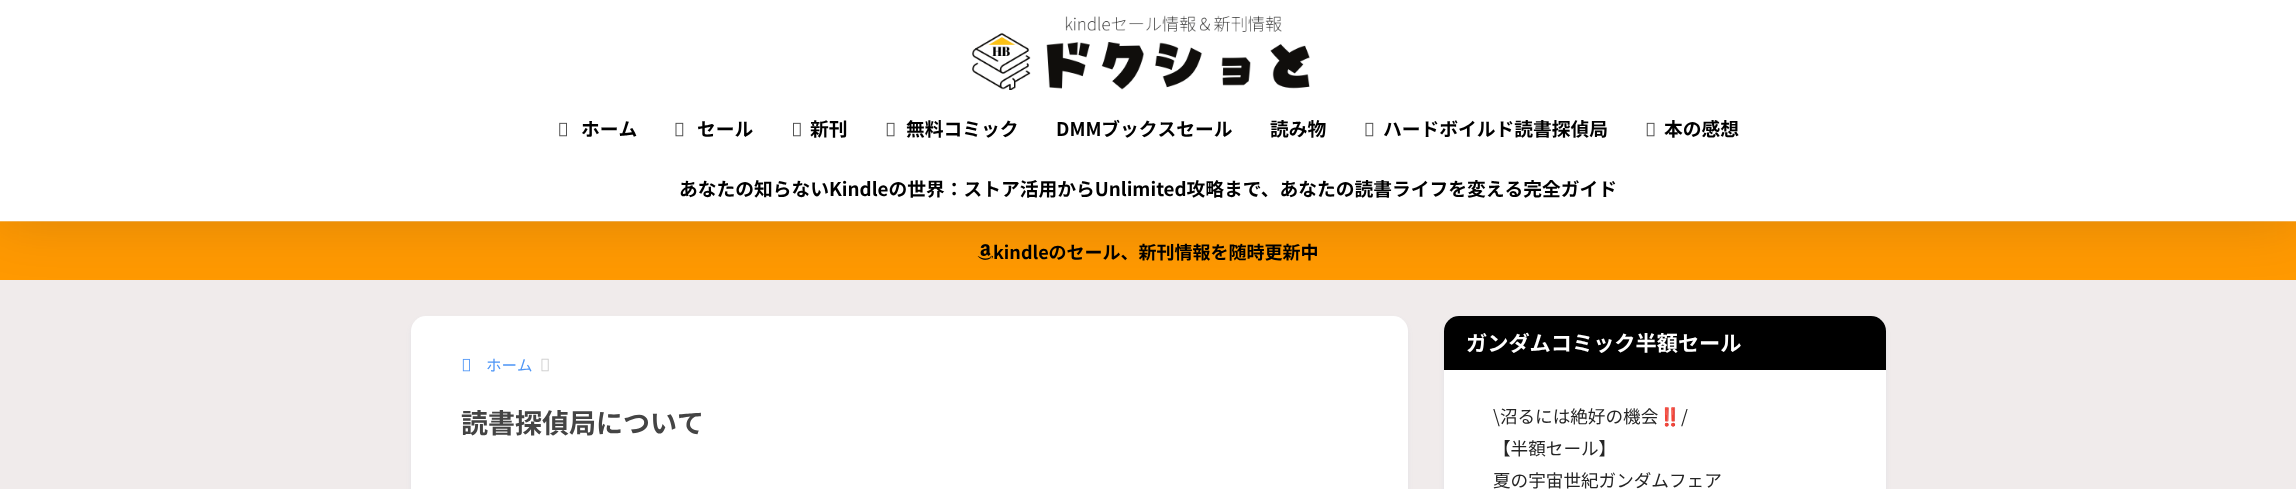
<!DOCTYPE html>
<meta charset="utf-8">
<style>body { margin: 0 } canvas { display: block }</style>
<canvas id="canvas" width="2296" height="489"></canvas>
<img id="img1" src="img_06.png" hidden>
<img id="img2" src="img_01.png" hidden>
<img id="img3" src="img_02.png" hidden>
<img id="img4" src="img_03.png" hidden>
<img id="img5" src="img_04.png" hidden>
<img id="img6" src="img_05.png" hidden>
<img id="img7" src="img_07.png" hidden>
<img id="img8" src="img_08.png" hidden>
<script>
window.onload = function () {
	const canvas = document.getElementById("canvas");
	const ctx = canvas.getContext("2d");
	ctx.miterLimit = 4;
	ctx.fontKerning = "normal";
	function txt(s, x, y) {
		ctx.fillText(s, x, y);
	}
	function fill(x, y, w, h) {
		ctx.fillRect(x, y, w, h);
	}
	function round(x, y, w, h, r) {
		ctx.beginPath();
		ctx.roundRect(x, y, w, h, r);
		ctx.fill();
	}
	function img(id, x, y, w, h) {
		ctx.drawImage(document.getElementById(id), x, y, w, h);
	}

	ctx.fillStyle = "#F0EBEB";
	fill(0, 0, 2296, 489);
	ctx.fillStyle = "#FF9900";
	fill(0, 222, 2296, 58);
	ctx.fillStyle = "#FFB84D";
	fill(0, 221, 2296, 1);
	img("img1", 977, 244, 16, 16);
	ctx.fillStyle = "rgba(0, 12, 66, 0.15)";
	ctx.filter = "blur(28px)";
	ctx.beginPath();
	ctx.rect(0, 0, 2296, 221);
	ctx.fill();
	ctx.filter = "none";
	ctx.fillStyle = "#FFFFFF";
	fill(0, 0, 2296, 221);
	img("img2", 972, 15, 338, 75);
	img("img3", 559, 122, 8, 15);
	img("img4", 675, 122, 9, 15);
	img("img5", 793, 122, 8, 15);
	img("img6", 886, 122, 9, 15);
	img("img4", 1365, 122, 9, 15);
	img("img6", 1646, 122, 9, 15);
	ctx.fillStyle = "rgba(67, 133, 187, 0.07)";
	ctx.filter = "blur(2.5px)";
	ctx.beginPath();
	ctx.roundRect(411, 319, 997, 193, 15);
	ctx.fill();
	ctx.filter = "none";
	ctx.fillStyle = "#FFFFFF";
	round(411, 316, 997, 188, 15);
	img("img7", 462, 358, 8, 14);
	img("img8", 541, 358, 8, 14);
	ctx.fillStyle = "rgba(67, 133, 187, 0.07)";
	ctx.filter = "blur(2.5px)";
	ctx.beginPath();
	ctx.roundRect(1444, 319, 442, 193, 15);
	ctx.fill();
	ctx.filter = "none";
	ctx.fillStyle = "#FFFFFF";
	round(1444, 316, 442, 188, 15);
	ctx.fillStyle = "#000000";
	ctx.beginPath();
	ctx.roundRect(1444, 316, 442, 54, [15, 15, 0, 0]);
	ctx.fill();
	ctx.font = "bold 18.75px Noto Sans JP";
	txt("ホーム", 581, 136);
	txt("セール", 697, 136);
	txt("新刊", 810, 136);
	txt("無料コミック", 906, 136);
	txt("DMMブックスセール", 1056, 136);
	txt("読み物", 1270, 136);
	txt("ハードボイルド読書探偵局", 1383, 136);
	txt("本の感想", 1664, 136);
	txt("あなたの知らないKindleの世界：ストア活用からUnlimited攻略まで、あなたの読書ライフを変える完全ガイド", 679, 196);
	ctx.font = "bold 18px Noto Sans JP";
	txt("kindleのセール、新刊情報を随時更新中", 993, 259);
	ctx.font = "15.5px Noto Sans JP";
	ctx.fillStyle = "#4F96F6";
	txt("ホーム", 486, 371);
	ctx.font = "bold 27px Noto Sans JP";
	ctx.fillStyle = "#444444";
	txt("読書探偵局について", 461, 433);
	ctx.font = "bold 21.2px Noto Sans JP";
	ctx.fillStyle = "#FFFFFF";
	txt("ガンダムコミック半額セール", 1466, 351);
	ctx.font = "17.6px Noto Sans JP";
	ctx.fillStyle = "#252525";
	txt("\\沼るには絶好の機会", 1493, 423);
	ctx.font = "17.6px Noto Color Emoji";
	txt("‼️", 1659, 423);
	ctx.font = "17.6px Noto Sans JP";
	txt("/", 1681, 423);
	txt("【半額セール】", 1493, 455);
	txt("夏の宇宙世紀ガンダムフェア", 1493, 487);
};
</script>
